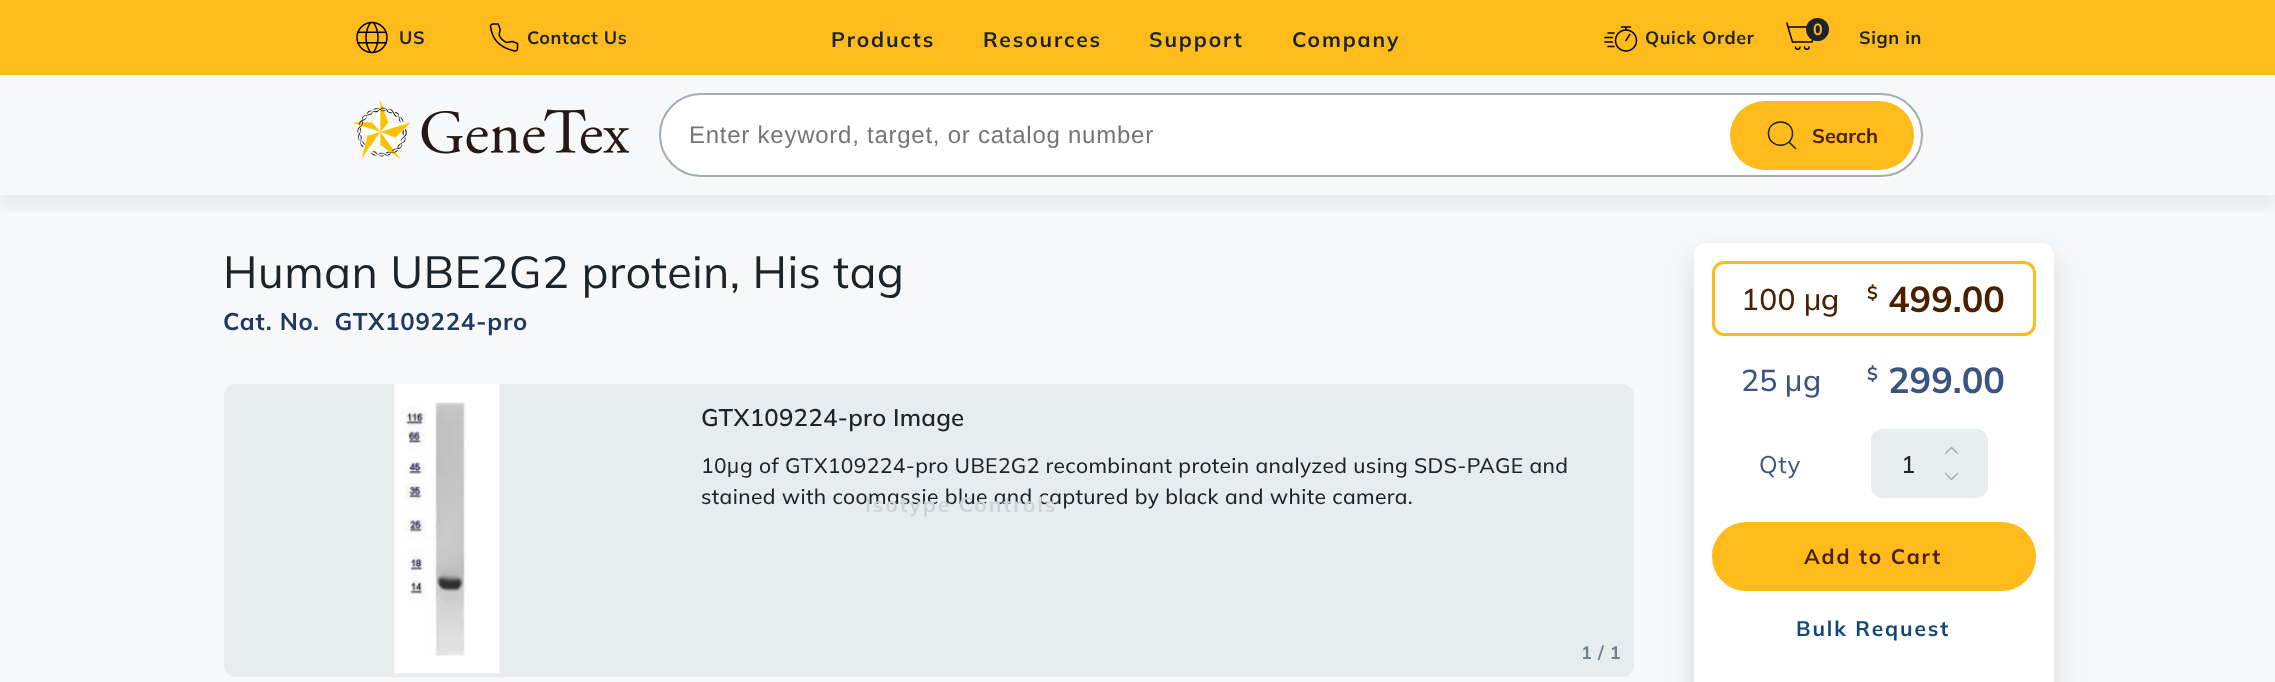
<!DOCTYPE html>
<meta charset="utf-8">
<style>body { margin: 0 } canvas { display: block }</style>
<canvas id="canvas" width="2275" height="682"></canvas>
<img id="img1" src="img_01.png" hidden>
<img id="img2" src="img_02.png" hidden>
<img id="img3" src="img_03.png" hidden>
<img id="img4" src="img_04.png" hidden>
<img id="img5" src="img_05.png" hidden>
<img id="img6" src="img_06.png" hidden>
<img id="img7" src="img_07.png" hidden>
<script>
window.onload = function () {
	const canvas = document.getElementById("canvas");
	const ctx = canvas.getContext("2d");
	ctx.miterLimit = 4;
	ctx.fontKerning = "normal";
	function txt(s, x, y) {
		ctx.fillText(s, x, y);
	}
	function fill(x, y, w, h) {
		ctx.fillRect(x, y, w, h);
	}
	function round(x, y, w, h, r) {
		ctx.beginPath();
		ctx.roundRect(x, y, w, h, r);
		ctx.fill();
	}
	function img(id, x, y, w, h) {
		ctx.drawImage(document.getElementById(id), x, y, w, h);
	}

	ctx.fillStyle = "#F6F8F9";
	fill(0, 0, 2275, 682);
	ctx.save();
	ctx.beginPath();
	ctx.rect(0, 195, 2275, 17);
	ctx.clip();
	ctx.fillStyle = "rgba(8, 18, 30, 0.05)";
	ctx.filter = "blur(7.5px)";
	ctx.beginPath();
	ctx.rect(0, 90, 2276, 120);
	ctx.fill();
	ctx.filter = "none";
	ctx.restore();
	ctx.fillStyle = "#FFBB1C";
	fill(0, 0, 2275, 75);
	img("img1", 356, 21, 32, 33);
	img("img2", 489, 23, 30, 29);
	img("img3", 1604, 26, 34, 26);
	ctx.beginPath();
	ctx.moveTo(1788, 27);
	ctx.lineTo(1816.5, 27);
	ctx.lineTo(1812, 42);
	ctx.lineTo(1792.5, 42);
	ctx.closePath();
	ctx.moveTo(1788, 27);
	ctx.lineTo(1787, 23);
	ctx.moveTo(1800, 47);
	ctx.bezierCurveTo(1800, 50, 1795.5, 50, 1795.5, 47);
	ctx.moveTo(1809, 47);
	ctx.bezierCurveTo(1809, 50, 1804.5, 50, 1804.5, 47);
	ctx.strokeStyle = "#000000";
	ctx.lineWidth = 1.5;
	ctx.lineCap = "round";
	ctx.lineJoin = "round";
	ctx.stroke();
	ctx.fillStyle = "#1B242B";
	ctx.beginPath();
	ctx.arc(1817.5, 29.5, 11.5, 0, Math.PI * 2);
	ctx.fill();
	img("img4", 354, 101, 275, 58);
	ctx.fillStyle = "#FFFFFF";
	ctx.beginPath();
	ctx.roundRect(660, 94, 1262, 82, 41);
	ctx.fill();
	ctx.strokeStyle = "#A0AFB4";
	ctx.lineWidth = 2;
	ctx.lineJoin = "miter";
	ctx.stroke();
	ctx.fillStyle = "#FFBB1C";
	round(1730, 101, 184, 69, 34.5);
	ctx.beginPath();
	ctx.moveTo(1789.5, 142.5);
	ctx.lineTo(1795.5, 148.5);
	ctx.moveTo(1768.5, 133.5);
	ctx.bezierCurveTo(1768.5, 149, 1792.5, 149, 1792.5, 133.5);
	ctx.bezierCurveTo(1792.5, 118, 1768.5, 118, 1768.5, 133.5);
	ctx.closePath();
	ctx.strokeStyle = "#1B242B";
	ctx.lineWidth = 1.5;
	ctx.lineJoin = "round";
	ctx.stroke();
	ctx.fillStyle = "#E7ECEE";
	round(224, 384, 1410, 293, 12);
	img("img5", 394, 384, 106, 290);
	ctx.fillStyle = "rgba(16, 20, 24, 0.07)";
	ctx.filter = "blur(18px)";
	ctx.beginPath();
	ctx.roundRect(1694, 261, 360, 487, 12);
	ctx.fill();
	ctx.filter = "none";
	ctx.fillStyle = "rgba(16, 20, 24, 0.06)";
	ctx.filter = "blur(10.5px)";
	ctx.beginPath();
	ctx.roundRect(1694, 255, 360, 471, 12);
	ctx.fill();
	ctx.filter = "none";
	ctx.fillStyle = "#FFFFFF";
	round(1694, 243, 360, 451, 12);
	ctx.beginPath();
	ctx.roundRect(1713.5, 262.5, 321, 72, 10.5);
	ctx.strokeStyle = "#FFBB1C";
	ctx.lineWidth = 3;
	ctx.lineJoin = "miter";
	ctx.stroke();
	ctx.fillStyle = "#E7ECEE";
	ctx.beginPath();
	ctx.roundRect(1872, 430, 115, 67, 11);
	ctx.fill();
	ctx.strokeStyle = "#E7ECEE";
	ctx.lineWidth = 2;
	ctx.stroke();
	img("img6", 1945, 446, 14, 9);
	img("img7", 1945, 472, 14, 9);
	ctx.fillStyle = "#FFBB1C";
	ctx.beginPath();
	ctx.roundRect(1713.5, 523.5, 321, 66, 33);
	ctx.fill();
	ctx.strokeStyle = "#FFBB1C";
	ctx.lineWidth = 3;
	ctx.stroke();
	ctx.letterSpacing = "0.6px";
	ctx.font = "bold 18px Mulish";
	ctx.fillStyle = "#1B242B";
	txt("US", 399, 44);
	txt("Contact Us", 527, 44);
	ctx.letterSpacing = "1.9px";
	ctx.font = "bold 21px Mulish";
	txt("Products", 831, 47);
	txt("Resources", 983, 47);
	txt("Support", 1149, 47);
	txt("Company", 1292, 47);
	ctx.letterSpacing = "0.6px";
	ctx.font = "bold 18px Mulish";
	txt("Quick Order", 1645, 44);
	ctx.font = "bold 16px Mulish";
	ctx.fillStyle = "#FFBB1C";
	txt("0", 1813, 35);
	ctx.font = "bold 18px Mulish";
	ctx.fillStyle = "#1B242B";
	txt("Sign in", 1859, 44);
	ctx.letterSpacing = "0.75px";
	ctx.font = "24px Liberation Sans";
	ctx.fillStyle = "#757575";
	txt("Enter keyword, target, or catalog number", 689, 143);
	ctx.letterSpacing = "0px";
	ctx.font = "bold 20px Mulish";
	ctx.fillStyle = "#4A2100";
	txt("Search", 1812, 143);
	ctx.letterSpacing = "0.38px";
	ctx.font = "45px Mulish";
	ctx.fillStyle = "#1B242B";
	txt("Human UBE2G2 protein, His tag", 223, 288);
	ctx.letterSpacing = "0.75px";
	ctx.font = "bold 24px Mulish";
	ctx.fillStyle = "#223861";
	txt("Cat. No.  GTX109224-pro", 223, 330);
	ctx.letterSpacing = "0.25px";
	ctx.font = "600 24px Mulish";
	ctx.fillStyle = "#1B242B";
	txt("GTX109224-pro Image", 701, 426);
	ctx.letterSpacing = "0.38px";
	ctx.font = "500 21px Mulish";
	txt("10", 701, 473);
	ctx.font = "21px Liberation Sans";
	txt("μ", 727, 473);
	ctx.font = "500 21px Mulish";
	txt("g of GTX109224-pro UBE2G2 recombinant protein analyzed using SDS-PAGE and", 740, 473);
	txt("stained with coomassie blue and captured by black and white camera.", 701, 504);
	ctx.letterSpacing = "1.9px";
	ctx.font = "bold 21px Mulish";
	ctx.fillStyle = "#CFD4D7";
	txt("Isotype Controls", 865, 512);
	ctx.letterSpacing = "0.6px";
	ctx.font = "bold 18px Mulish";
	ctx.fillStyle = "#6D8289";
	txt("1 / 1", 1581, 659);
	ctx.letterSpacing = "0.25px";
	ctx.font = "500 30px Mulish";
	ctx.fillStyle = "#4A2100";
	txt("100", 1741, 310);
	ctx.font = "30px Liberation Sans";
	txt("μ", 1804, 310);
	ctx.font = "500 30px Mulish";
	txt("g", 1821, 310);
	ctx.letterSpacing = "0.6px";
	ctx.font = "bold 18px Mulish";
	txt("$", 1867, 299);
	ctx.letterSpacing = "0px";
	ctx.font = "bold 36px Mulish";
	txt("499.00", 1888, 312);
	ctx.letterSpacing = "0.25px";
	ctx.font = "500 30px Mulish";
	ctx.fillStyle = "#3B5580";
	txt("25", 1741, 391);
	ctx.font = "30px Liberation Sans";
	txt("μ", 1785, 391);
	ctx.font = "500 30px Mulish";
	txt("g", 1803, 391);
	ctx.letterSpacing = "0.6px";
	ctx.font = "bold 18px Mulish";
	txt("$", 1867, 380);
	ctx.letterSpacing = "0px";
	ctx.font = "bold 36px Mulish";
	txt("299.00", 1888, 393);
	ctx.letterSpacing = "0.75px";
	ctx.font = "24px Mulish";
	txt("Qty", 1759, 473);
	ctx.font = "500 24px Mulish";
	ctx.fillStyle = "#1B242B";
	txt("1", 1901, 473);
	ctx.letterSpacing = "1.9px";
	ctx.font = "bold 21px Mulish";
	ctx.fillStyle = "#4A2100";
	txt("Add to Cart", 1804, 564);
	ctx.fillStyle = "#0E4778";
	txt("Bulk Request", 1796, 636);
};
</script>
